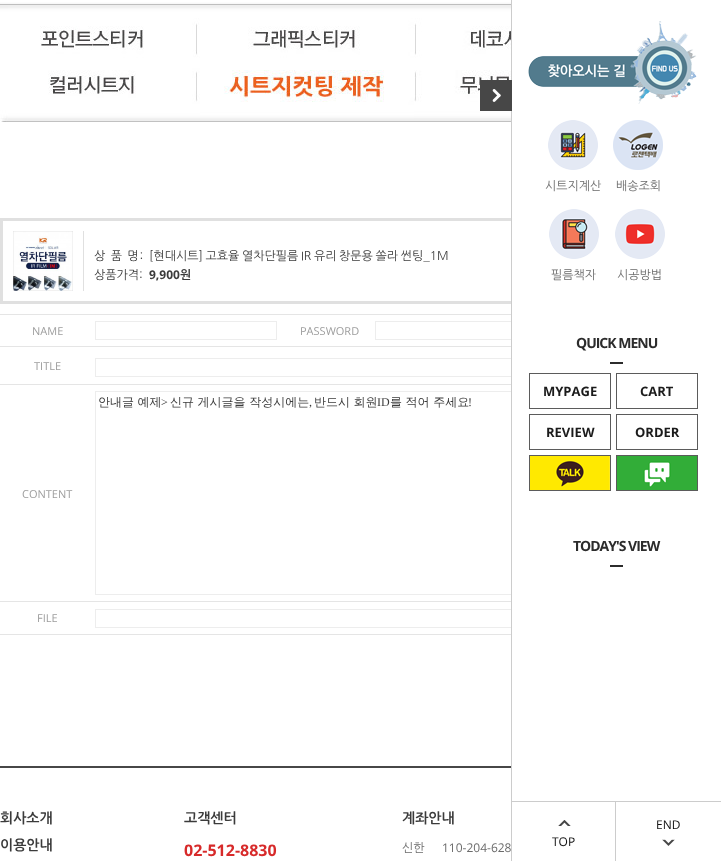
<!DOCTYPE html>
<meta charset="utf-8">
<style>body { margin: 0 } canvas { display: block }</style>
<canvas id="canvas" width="721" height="861"></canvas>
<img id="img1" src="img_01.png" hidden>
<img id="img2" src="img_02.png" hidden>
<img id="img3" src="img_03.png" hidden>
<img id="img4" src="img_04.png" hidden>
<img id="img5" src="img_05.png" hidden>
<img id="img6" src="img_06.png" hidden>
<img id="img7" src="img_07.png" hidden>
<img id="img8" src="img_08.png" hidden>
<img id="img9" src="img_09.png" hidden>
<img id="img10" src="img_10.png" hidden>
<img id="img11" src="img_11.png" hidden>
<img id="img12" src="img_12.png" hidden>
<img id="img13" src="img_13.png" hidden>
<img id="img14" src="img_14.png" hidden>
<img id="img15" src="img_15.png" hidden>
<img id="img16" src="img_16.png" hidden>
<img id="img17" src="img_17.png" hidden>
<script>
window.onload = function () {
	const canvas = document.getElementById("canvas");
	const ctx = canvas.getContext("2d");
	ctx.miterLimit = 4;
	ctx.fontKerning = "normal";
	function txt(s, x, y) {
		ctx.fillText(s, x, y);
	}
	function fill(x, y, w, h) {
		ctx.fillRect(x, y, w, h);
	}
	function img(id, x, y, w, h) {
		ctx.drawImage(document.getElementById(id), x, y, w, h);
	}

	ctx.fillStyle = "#FFFFFF";
	fill(0, 0, 721, 861);
	img("img1", 0, 2, 200, 60);
	img("img2", 200, 2, 214, 60);
	img("img3", 414, 2, 97, 60);
	img("img4", 0, 62, 200, 60);
	img("img5", 200, 62, 214, 60);
	img("img6", 414, 62, 97, 60);
	ctx.strokeStyle = "#E0E0E0";
	ctx.lineWidth = 3;
	ctx.strokeRect(1.5, 219.5, 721, 83);
	img("img7", 13, 231, 60, 60);
	ctx.fillStyle = "#E0E0E0";
	fill(83, 231, 1, 60);
	ctx.fillStyle = "#E5E5E5";
	fill(0, 314, 511, 1);
	ctx.strokeStyle = "#EDEDED";
	ctx.lineWidth = 1;
	ctx.strokeRect(375.5, 321.5, 181, 18);
	ctx.strokeRect(95.5, 321.5, 181, 18);
	fill(0, 346, 511, 1);
	ctx.strokeRect(95.5, 358.5, 461, 18);
	fill(0, 384, 511, 1);
	ctx.strokeRect(95.5, 391.5, 533, 203);
	fill(0, 601, 511, 1);
	fill(0, 634, 511, 1);
	ctx.strokeRect(95.5, 609.5, 461, 18);
	ctx.fillStyle = "#474747";
	fill(0, 766, 511, 2);
	ctx.fillStyle = "#FFFFFF";
	fill(512, 218, 209, 410);
	ctx.fillStyle = "#CCCCCC";
	fill(511, 0, 1, 861);
	ctx.fillStyle = "#474747";
	fill(480, 80, 32, 31);
	img("img8", 492, 89, 9, 13);
	img("img9", 528, 21, 169, 83);
	img("img10", 548, 120, 50, 50);
	img("img11", 613, 120, 50, 50);
	img("img12", 549, 209, 50, 50);
	img("img13", 615, 209, 50, 50);
	ctx.fillStyle = "#2C2C2C";
	fill(610, 362, 13, 2);
	ctx.strokeStyle = "#5B5B5B";
	ctx.strokeRect(529.5, 373.5, 81, 35);
	ctx.strokeRect(616.5, 373.5, 81, 35);
	ctx.strokeRect(529.5, 414.5, 81, 35);
	ctx.strokeRect(616.5, 414.5, 81, 35);
	ctx.strokeRect(529.5, 455.5, 81, 35);
	img("img14", 530, 456, 80, 34);
	ctx.strokeRect(616.5, 455.5, 81, 35);
	img("img15", 617, 456, 80, 34);
	fill(610, 565, 13, 2);
	ctx.fillStyle = "#CCCCCC";
	fill(512, 801, 209, 1);
	fill(615, 802, 1, 59);
	img("img16", 662, 839, 13, 7);
	img("img17", 558, 820, 13, 6);
	ctx.letterSpacing = "1px";
	ctx.font = "12px NanumGothic";
	ctx.fillStyle = "#3B3B3B";
	txt("상 품 명:", 94, 260);
	ctx.letterSpacing = "0px";
	ctx.wordSpacing = "-0.75px";
	txt("[현대시트] 고효율 열차단필름 IR 유리 창문용 쏠라 썬팅_1M", 149, 260);
	ctx.wordSpacing = "0px";
	txt("상품가격:", 94, 279);
	ctx.font = "bold 12px Open Sans";
	txt("9,900", 149, 279);
	ctx.font = "bold 12px NanumGothic";
	txt("원", 180, 279);
	ctx.font = "11px Open Sans";
	ctx.fillStyle = "#9D9D9D";
	txt("NAME", 32, 335);
	txt("PASSWORD", 300, 335);
	txt("TITLE", 34, 370);
	ctx.font = "500 12px WenQuanYi Zen Hei";
	ctx.fillStyle = "#3B3B3B";
	txt("안내글 예제", 98, 406);
	ctx.font = "12px Liberation Serif";
	txt(">", 161, 406);
	ctx.font = "500 12px WenQuanYi Zen Hei";
	txt("신규 게시글을 작성시에는", 170, 406);
	txt("반드시 회원", 314, 406);
	ctx.font = "12px Liberation Serif";
	txt("ID", 377, 406);
	ctx.font = "500 12px WenQuanYi Zen Hei";
	txt("를 적어 주세요", 390, 406);
	ctx.font = "12px Liberation Serif";
	txt("!", 468, 406);
	txt(",", 309, 406);
	ctx.font = "11px Open Sans";
	ctx.fillStyle = "#9D9D9D";
	txt("CONTENT", 22, 498);
	txt("FILE", 37, 622);
	ctx.font = "bold 14px NanumGothic";
	ctx.fillStyle = "#3B3B3B";
	txt("회사소개", 0, 823);
	txt("이용안내", 0, 850);
	txt("고객센터", 184, 823);
	ctx.font = "bold 16px Open Sans";
	ctx.fillStyle = "#D72A2A";
	txt("02-512-8830", 184, 856);
	ctx.font = "bold 14px NanumGothic";
	ctx.fillStyle = "#3B3B3B";
	txt("계좌안내", 402, 823);
	ctx.font = "12px NanumGothic";
	ctx.fillStyle = "#6B6B6B";
	txt("신한", 402, 852);
	ctx.font = "12px Open Sans";
	txt("110-204-628", 442, 852);
	ctx.font = "12px NanumGothic";
	txt("시트지계산", 545, 190);
	txt("배송조회", 616, 190);
	txt("필름책자", 551, 279);
	txt("시공방법", 617, 279);
	ctx.letterSpacing = "-1px";
	ctx.font = "bold 14px Open Sans";
	ctx.fillStyle = "#2C2C2C";
	txt("QUICK MENU", 576, 348);
	ctx.letterSpacing = "0px";
	ctx.font = "bold 13px Open Sans";
	ctx.fillStyle = "#1B1B1B";
	txt("MYPAGE", 543, 396);
	txt("CART", 640, 396);
	txt("REVIEW", 546, 437);
	txt("ORDER", 635, 437);
	ctx.letterSpacing = "-1px";
	ctx.font = "bold 14px Open Sans";
	ctx.fillStyle = "#2C2C2C";
	txt("TODAY'S VIEW", 573, 551);
	ctx.letterSpacing = "0px";
	ctx.font = "12px Open Sans";
	ctx.fillStyle = "#111111";
	txt("END", 656, 829);
	txt("TOP", 552, 846);
};
</script>
